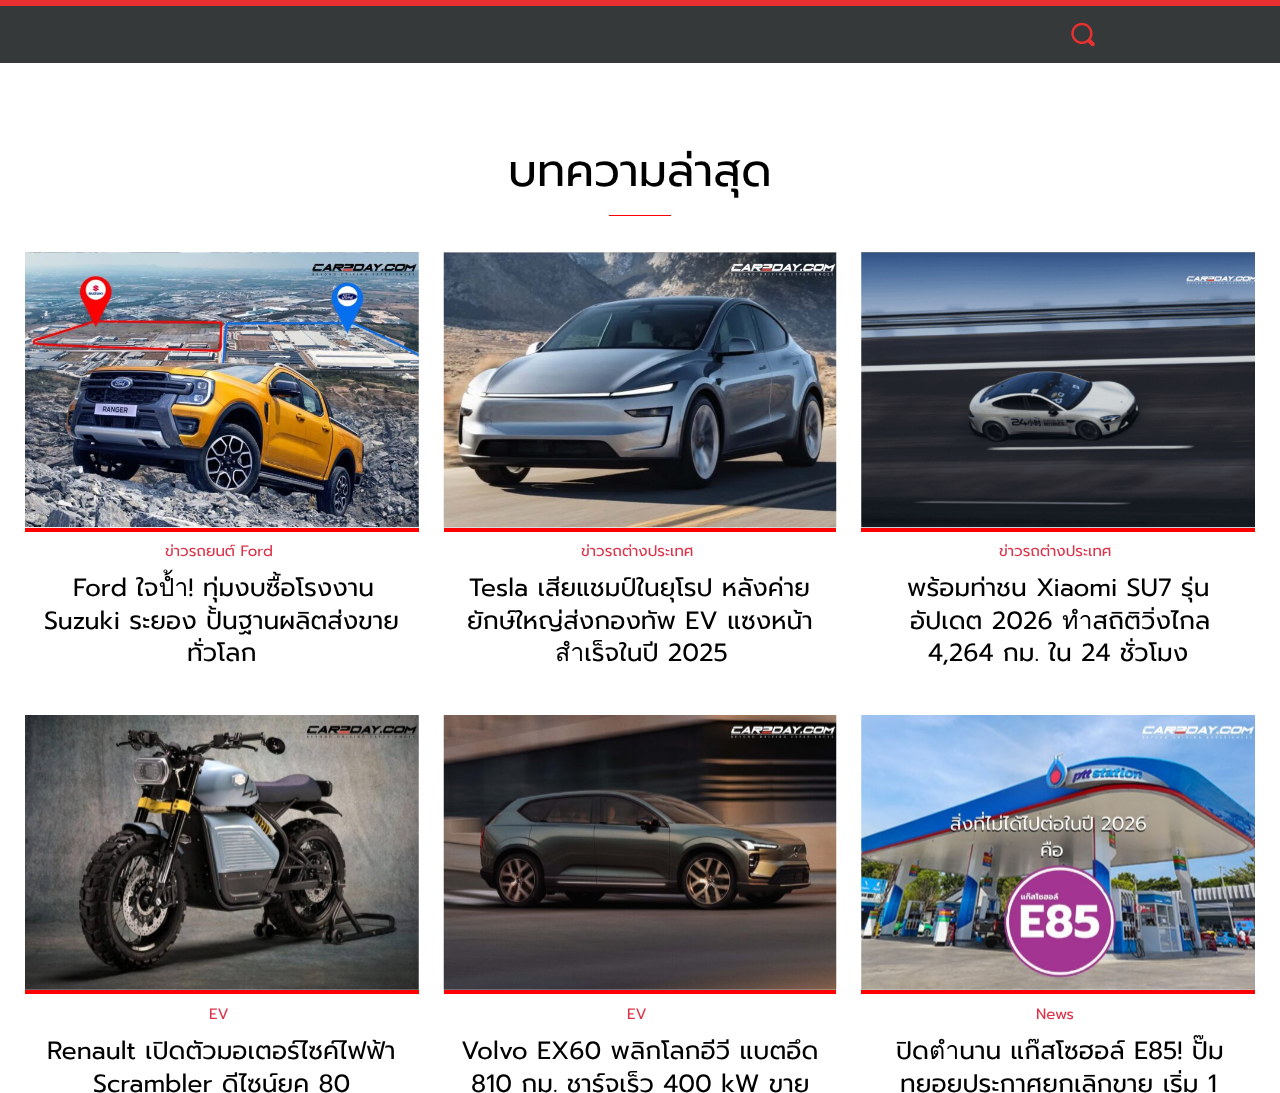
<!DOCTYPE html>
<meta charset="utf-8">
<style>body { margin: 0 } canvas { display: block }</style>
<canvas id="canvas" width="1280" height="1093"></canvas>
<img id="img1" src="img_01.png" hidden>
<img id="img2" src="img_02.png" hidden>
<img id="img3" src="img_03.png" hidden>
<img id="img4" src="img_04.png" hidden>
<img id="img5" src="img_05.png" hidden>
<img id="img6" src="img_06.png" hidden>
<img id="img7" src="img_07.png" hidden>
<script>
window.onload = function () {
	const canvas = document.getElementById("canvas");
	const ctx = canvas.getContext("2d");
	ctx.miterLimit = 4;
	ctx.fontKerning = "normal";
	function txt(s, x, y) {
		ctx.fillText(s, x, y);
	}
	function fill(x, y, w, h) {
		ctx.fillRect(x, y, w, h);
	}
	function img(id, x, y, w, h) {
		ctx.drawImage(document.getElementById(id), x, y, w, h);
	}

	ctx.fillStyle = "#FFFFFF";
	fill(0, 0, 1280, 1093);
	ctx.fillStyle = "#353939";
	fill(0, 6, 1280, 57);
	ctx.fillStyle = "#E83030";
	fill(0, 0, 1280, 6);
	img("img1", 1071, 22, 24, 25);
	ctx.fillStyle = "#FF0000";
	fill(609, 215, 62, 1);
	img("img2", 25, 252, 394, 276);
	fill(25, 528, 394, 4);
	img("img3", 443, 252, 394, 276);
	fill(444, 528, 392, 4);
	img("img4", 861, 252, 394, 276);
	fill(861, 528, 394, 4);
	img("img5", 25, 715, 394, 275);
	fill(25, 990, 394, 4);
	img("img6", 443, 715, 394, 275);
	fill(444, 990, 392, 4);
	img("img7", 861, 715, 394, 275);
	fill(861, 990, 394, 4);
	ctx.font = "45px Prompt";
	ctx.fillStyle = "#000000";
	txt("บทความล่าสุด", 508, 186);
	ctx.font = "15px Prompt";
	ctx.fillStyle = "#DC3349";
	txt("ข่าวรถยนต์ Ford", 165, 556);
	ctx.font = "25px Prompt";
	ctx.fillStyle = "#000000";
	txt("Ford ใจป้ำ! ทุ่มงบซื้อโรงงาน", 73, 596);
	txt("Suzuki ระยอง ปั้นฐานผลิตส่งขาย", 44, 629);
	txt("ทั่วโลก", 187, 661);
	ctx.font = "15px Prompt";
	ctx.fillStyle = "#DC3349";
	txt("ข่าวรถต่างประเทศ", 581, 556);
	ctx.font = "25px Prompt";
	ctx.fillStyle = "#000000";
	txt("Tesla เสียแชมป์ในยุโรป หลังค่าย", 469, 596);
	txt("ยักษ์ใหญ่ส่งกองทัพ EV แซงหน้า", 467, 629);
	txt("สำเร็จในปี 2025", 555, 661);
	ctx.font = "15px Prompt";
	ctx.fillStyle = "#DC3349";
	txt("ข่าวรถต่างประเทศ", 999, 556);
	ctx.font = "25px Prompt";
	ctx.fillStyle = "#000000";
	txt("พร้อมท่าชน Xiaomi SU7 รุ่น", 907, 596);
	txt("อัปเดต 2026 ทำสถิติวิ่งไกล", 910, 629);
	txt("4,264 กม. ใน 24 ชั่วโมง", 928, 661);
	ctx.font = "15px Prompt";
	ctx.fillStyle = "#DC3349";
	txt("EV", 209, 1019);
	ctx.font = "25px Prompt";
	ctx.fillStyle = "#000000";
	txt("Renault เปิดตัวมอเตอร์ไซค์ไฟฟ้า", 47, 1059);
	txt("Scrambler ดีไซน์ยุค 80", 93, 1092);
	ctx.font = "15px Prompt";
	ctx.fillStyle = "#DC3349";
	txt("EV", 627, 1019);
	ctx.font = "25px Prompt";
	ctx.fillStyle = "#000000";
	txt("Volvo EX60 พลิกโลกอีวี แบตอึด", 461, 1059);
	txt("810 กม. ชาร์จเร็ว 400 kW ขาย", 471, 1092);
	ctx.font = "15px Prompt";
	ctx.fillStyle = "#DC3349";
	txt("News", 1036, 1019);
	ctx.font = "25px Prompt";
	ctx.fillStyle = "#000000";
	txt("ปิดตำนาน แก๊สโซฮอล์ E85! ปั๊ม", 896, 1059);
	txt("ทยอยประกาศยกเลิกขาย เริ่ม 1", 900, 1092);
};
</script>
